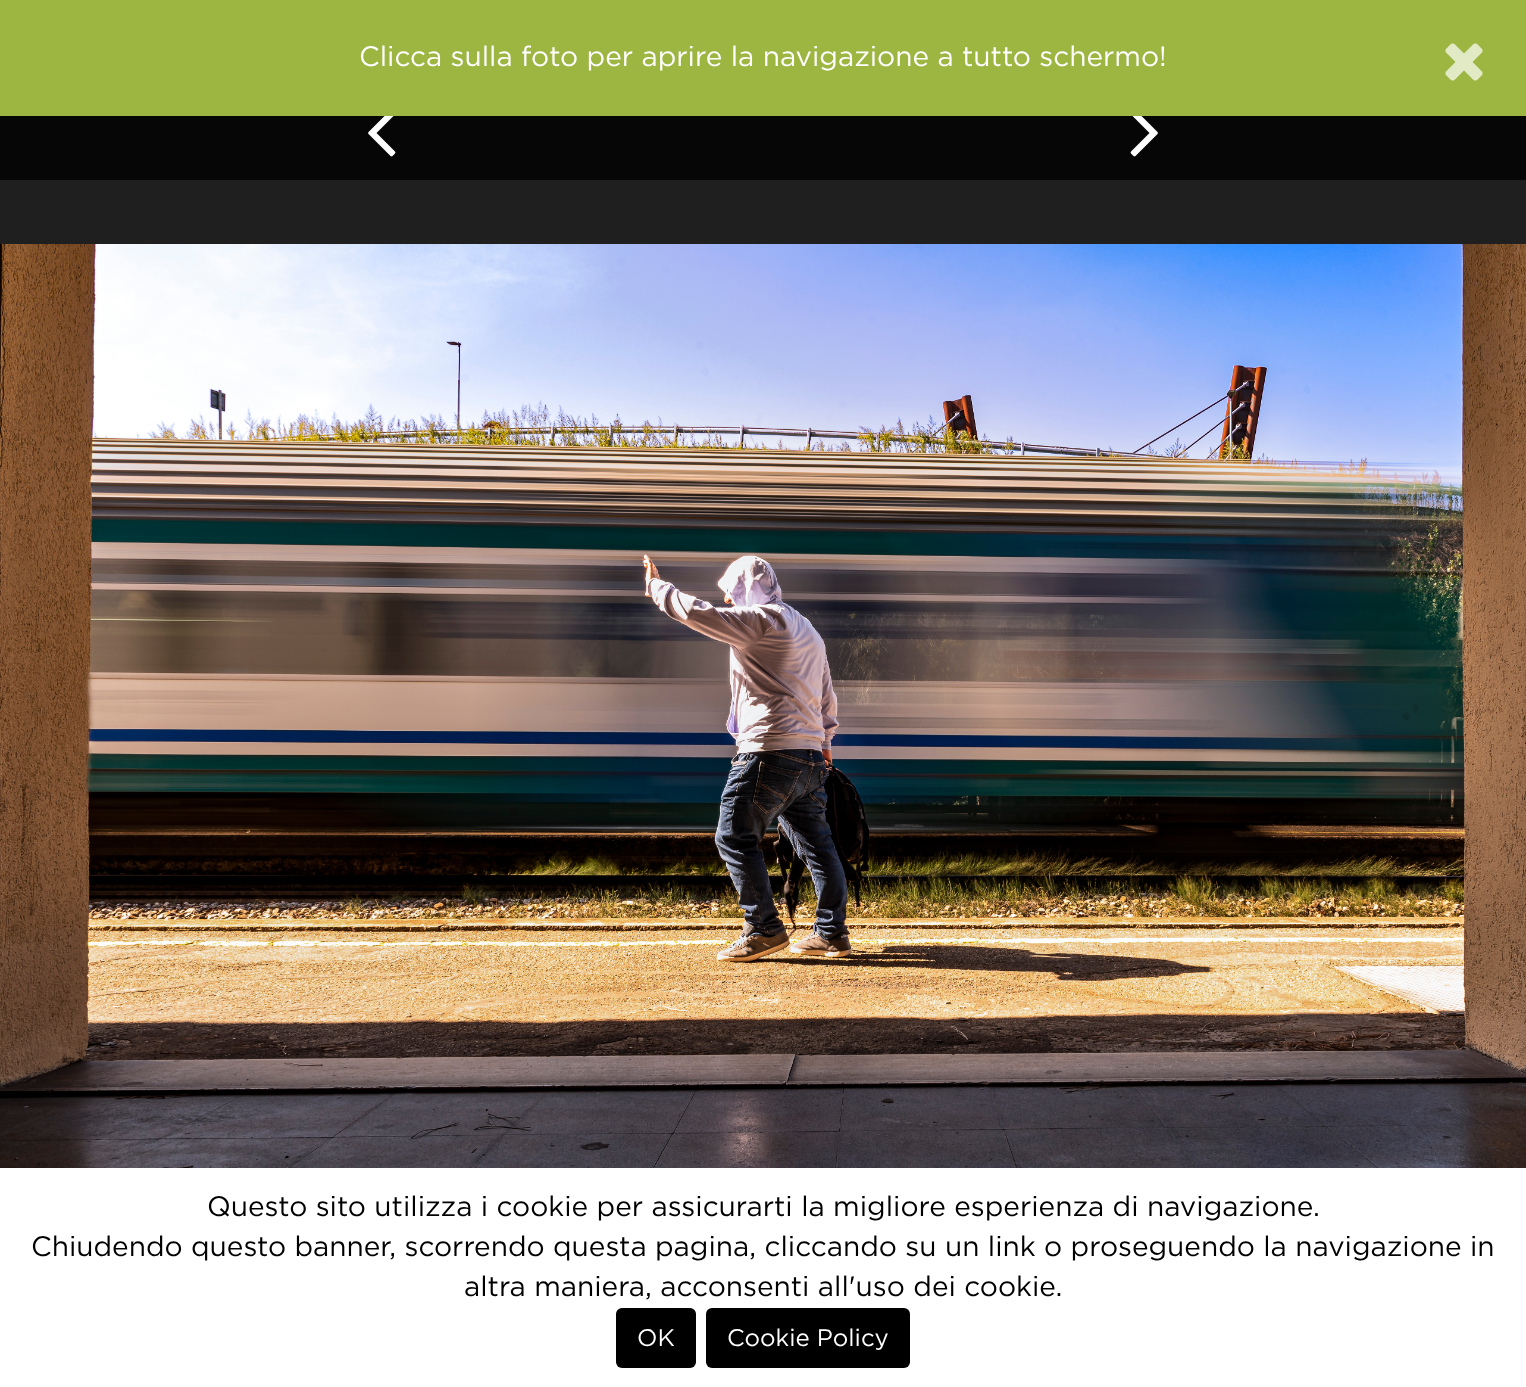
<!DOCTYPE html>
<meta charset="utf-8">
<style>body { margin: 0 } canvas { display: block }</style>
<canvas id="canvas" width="1526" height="1387"></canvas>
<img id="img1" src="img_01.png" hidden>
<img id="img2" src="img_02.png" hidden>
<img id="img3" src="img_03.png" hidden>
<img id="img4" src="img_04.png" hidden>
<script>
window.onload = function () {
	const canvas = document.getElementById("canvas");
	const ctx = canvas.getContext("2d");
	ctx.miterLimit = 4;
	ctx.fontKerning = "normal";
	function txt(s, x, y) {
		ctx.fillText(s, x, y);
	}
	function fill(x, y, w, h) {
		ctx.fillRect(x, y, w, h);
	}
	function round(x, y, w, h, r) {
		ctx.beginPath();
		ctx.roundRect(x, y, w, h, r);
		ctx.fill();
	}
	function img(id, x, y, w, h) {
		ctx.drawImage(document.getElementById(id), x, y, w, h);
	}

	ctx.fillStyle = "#1F1F1F";
	fill(0, 0, 1526, 1387);
	ctx.fillStyle = "#9CB641";
	fill(0, 0, 1526, 116);
	img("img1", 1445, 43, 38, 38);
	ctx.fillStyle = "#060606";
	fill(0, 116, 1526, 64);
	img("img2", 368, 116, 28, 41);
	img("img3", 1130, 116, 28, 41);
	img("img4", 0, 244, 1526, 924);
	ctx.fillStyle = "#FFFFFF";
	fill(0, 1168, 1526, 219);
	ctx.fillStyle = "#000000";
	round(616, 1308, 80, 60, 6);
	round(706, 1308, 204, 60, 6);
	ctx.font = "28px Gotham";
	ctx.fillStyle = "#FFFFFF";
	txt("Clicca sulla foto per aprire la navigazione a tutto schermo!", 359, 66);
	ctx.fillStyle = "#000000";
	txt("Questo sito utilizza i cookie per assicurarti la migliore esperienza di navigazione.", 207, 1216);
	txt("Chiudendo questo banner, scorrendo questa pagina, cliccando su un link o proseguendo la navigazione in", 31, 1256);
	txt("altra maniera, acconsenti all'uso dei cookie.", 464, 1296);
	ctx.font = "24px Gotham";
	ctx.fillStyle = "#FFFFFF";
	txt("OK", 637, 1346);
	txt("Cookie Policy", 727, 1346);
};
</script>
